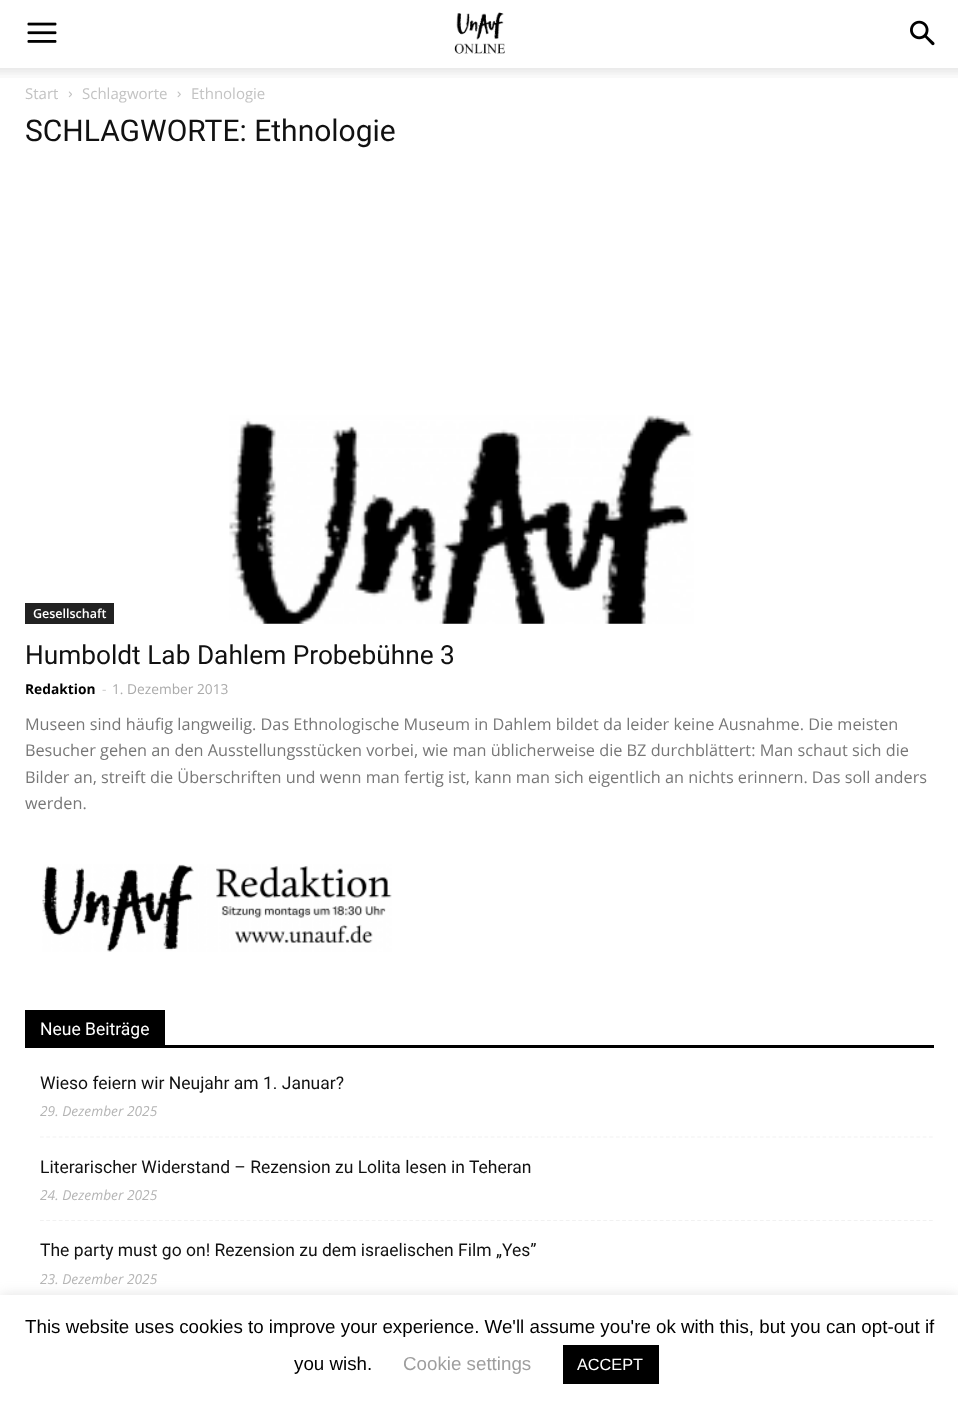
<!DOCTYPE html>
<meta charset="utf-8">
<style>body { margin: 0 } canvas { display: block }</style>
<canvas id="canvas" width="958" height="1405"></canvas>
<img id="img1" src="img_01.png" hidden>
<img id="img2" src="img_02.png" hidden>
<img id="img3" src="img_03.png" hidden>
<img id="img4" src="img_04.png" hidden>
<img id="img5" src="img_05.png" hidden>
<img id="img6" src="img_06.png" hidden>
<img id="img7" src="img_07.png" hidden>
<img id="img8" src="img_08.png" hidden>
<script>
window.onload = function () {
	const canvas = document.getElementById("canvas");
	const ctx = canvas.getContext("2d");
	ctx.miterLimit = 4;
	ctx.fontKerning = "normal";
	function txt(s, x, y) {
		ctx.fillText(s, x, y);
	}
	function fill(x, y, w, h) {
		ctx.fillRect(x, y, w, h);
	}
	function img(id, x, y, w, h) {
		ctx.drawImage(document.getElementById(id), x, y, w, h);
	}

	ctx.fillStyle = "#FFFFFF";
	fill(0, 0, 958, 1405);
	img("img1", 27, 22, 30, 21);
	img("img2", 454, 12, 51, 42);
	img("img3", 910, 20, 25, 26);
	img("img4", 0, 68, 958, 10);
	img("img5", 68, 91, 4, 7);
	img("img6", 177, 91, 4, 7);
	ctx.fillStyle = "#222222";
	fill(25, 603, 89, 21);
	img("img7", 229, 415, 465, 209);
	img("img8", 42, 864, 350, 88);
	ctx.fillStyle = "#000000";
	fill(25, 1045, 909, 3);
	fill(25, 1010, 140, 35);
	ctx.beginPath();
	ctx.moveTo(40, 1137);
	ctx.lineTo(934, 1137);
	ctx.strokeStyle = "#F1F1F1";
	ctx.lineWidth = 1.2;
	ctx.setLineDash([3.75, 2.51]);
	ctx.stroke();
	ctx.beginPath();
	ctx.moveTo(40, 1220.5);
	ctx.lineTo(934, 1220.5);
	ctx.stroke();
	ctx.fillStyle = "rgba(172, 171, 171, 0.3)";
	ctx.filter = "blur(6px)";
	ctx.beginPath();
	ctx.rect(0, 1294, 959, 110);
	ctx.fill();
	ctx.filter = "none";
	ctx.fillStyle = "#FFFFFF";
	fill(0, 1295, 958, 110);
	ctx.fillStyle = "#000000";
	fill(563, 1345, 96, 39);
	ctx.font = "15px Open Sans";
	ctx.fillStyle = "#C3C3C3";
	txt("Start", 25, 99);
	txt("Schlagworte", 82, 99);
	txt("Ethnologie", 191, 99);
	ctx.font = "30px Roboto";
	ctx.fillStyle = "#111111";
	txt("SCHLAGWORTE: Ethnologie", 25, 141);
	ctx.font = "600 12.5px Open Sans";
	ctx.fillStyle = "#FFFFFF";
	txt("Gesellschaft", 33, 618);
	ctx.font = "26.25px Roboto";
	ctx.fillStyle = "#111111";
	txt("Humboldt Lab Dahlem Probebühne 3", 25, 664);
	ctx.font = "bold 13.75px Open Sans";
	ctx.fillStyle = "#000000";
	txt("Redaktion", 25, 694);
	ctx.font = "13.75px Open Sans";
	ctx.fillStyle = "#CCCCCC";
	txt("-", 102, 694);
	ctx.fillStyle = "#AAAAAA";
	txt("1. Dezember 2013", 112, 694);
	ctx.font = "16.25px Open Sans";
	ctx.fillStyle = "#777777";
	txt("Museen sind häufig langweilig. Das Ethnologische Museum in Dahlem bildet da leider keine Ausnahme. Die meisten", 25, 730);
	txt("Besucher gehen an den Ausstellungsstücken vorbei, wie man üblicherweise die BZ durchblättert: Man schaut sich die", 25, 756);
	txt("Bilder an, streift die Überschriften und wenn man fertig ist, kann man sich eigentlich an nichts erinnern. Das soll anders", 25, 783);
	txt("werden.", 25, 809);
	ctx.font = "17.5px Roboto";
	ctx.fillStyle = "#FFFFFF";
	txt("Neue Beiträge", 40, 1035);
	ctx.fillStyle = "#111111";
	txt("Wieso feiern wir Neujahr am 1. Januar?", 40, 1089);
	ctx.font = "italic 13.75px Open Sans";
	ctx.fillStyle = "#B5B5B5";
	txt("29. Dezember 2025", 40, 1116);
	ctx.font = "17.5px Roboto";
	ctx.fillStyle = "#111111";
	txt("Literarischer Widerstand – Rezension zu Lolita lesen in Teheran", 40, 1173);
	ctx.font = "italic 13.75px Open Sans";
	ctx.fillStyle = "#B5B5B5";
	txt("24. Dezember 2025", 40, 1200);
	ctx.font = "17.5px Roboto";
	ctx.fillStyle = "#111111";
	txt("The party must go on! Rezension zu dem israelischen Film „Yes”", 40, 1256);
	ctx.font = "italic 13.75px Open Sans";
	ctx.fillStyle = "#B5B5B5";
	txt("23. Dezember 2025", 40, 1284);
	ctx.font = "18.75px Liberation Sans";
	ctx.fillStyle = "#000000";
	txt("This website uses cookies to improve your experience. We'll assume you're ok with this, but you can opt-out if", 25, 1333);
	txt("you wish.", 294, 1370);
	ctx.fillStyle = "#9E9E9E";
	txt("Cookie settings", 403, 1370);
	ctx.font = "16.25px Liberation Sans";
	ctx.fillStyle = "#FFFFFF";
	txt("ACCEPT", 577, 1370);
};
</script>
